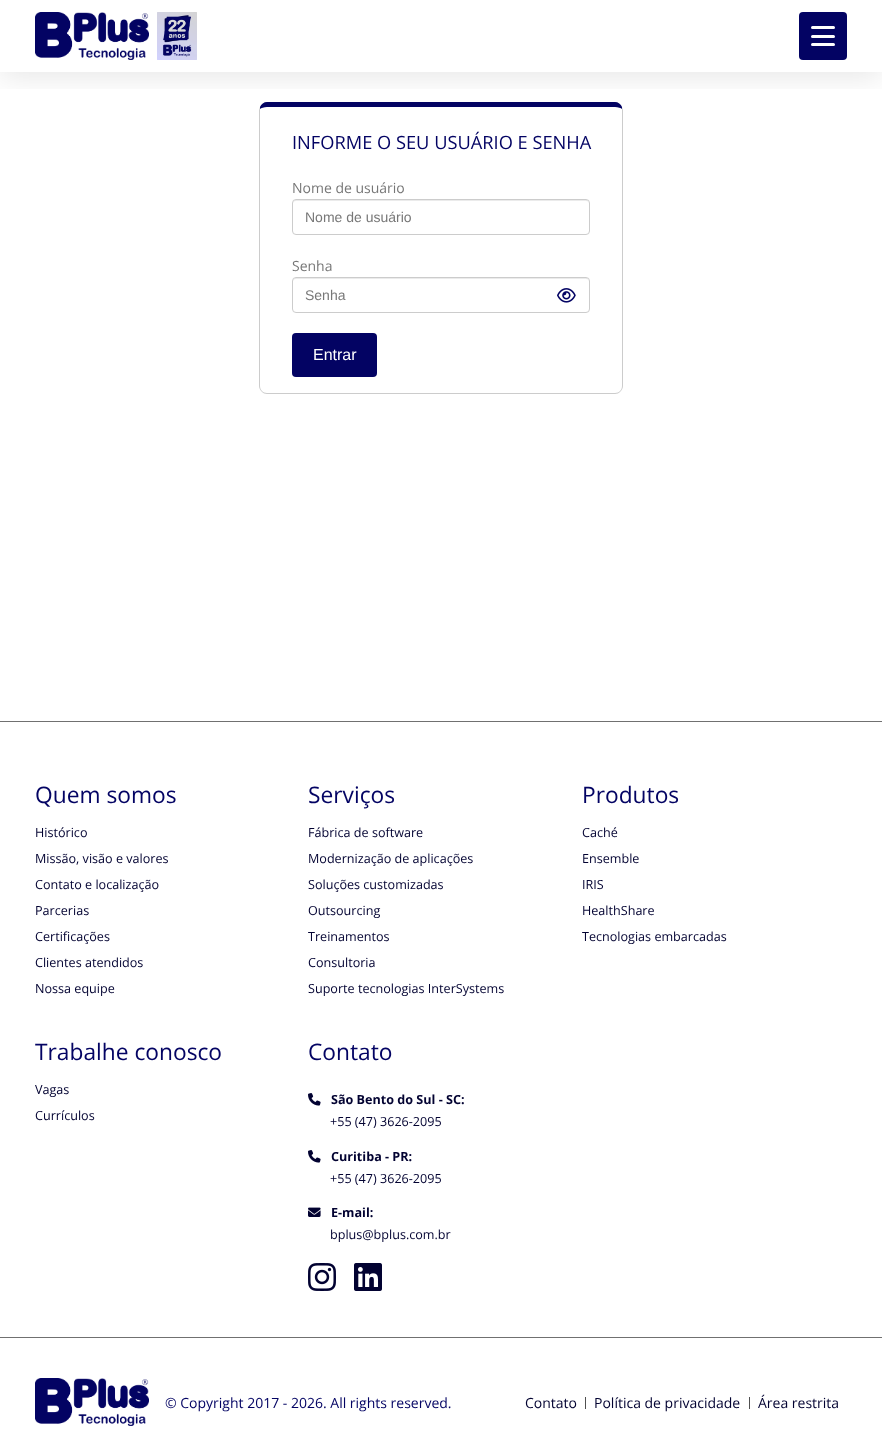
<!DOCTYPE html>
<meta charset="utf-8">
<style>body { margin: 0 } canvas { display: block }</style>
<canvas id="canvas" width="882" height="1444"></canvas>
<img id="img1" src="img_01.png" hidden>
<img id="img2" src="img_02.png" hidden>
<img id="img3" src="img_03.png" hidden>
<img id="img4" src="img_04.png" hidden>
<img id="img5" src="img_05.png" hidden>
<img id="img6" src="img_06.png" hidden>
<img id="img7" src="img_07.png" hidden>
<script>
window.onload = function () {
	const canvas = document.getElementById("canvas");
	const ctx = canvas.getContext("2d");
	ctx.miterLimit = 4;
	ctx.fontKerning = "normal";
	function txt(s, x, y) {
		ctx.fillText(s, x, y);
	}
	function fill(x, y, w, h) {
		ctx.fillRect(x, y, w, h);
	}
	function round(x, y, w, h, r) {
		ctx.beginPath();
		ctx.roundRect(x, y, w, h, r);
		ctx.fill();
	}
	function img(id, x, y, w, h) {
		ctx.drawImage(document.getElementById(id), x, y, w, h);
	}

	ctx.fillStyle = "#FFFFFF";
	fill(0, 0, 882, 1444);
	ctx.fillStyle = "#030363";
	ctx.beginPath();
	ctx.moveTo(267, 102);
	ctx.bezierCurveTo(264, 102, 261, 104, 260, 107);
	ctx.lineTo(260, 109);
	ctx.bezierCurveTo(261, 108, 264, 107, 267, 107);
	ctx.lineTo(615, 107);
	ctx.bezierCurveTo(618, 107, 621, 108, 622, 109);
	ctx.lineTo(622, 107);
	ctx.bezierCurveTo(621, 104, 618, 102, 615, 102);
	ctx.closePath();
	ctx.fill();
	ctx.fillStyle = "#CCCCCC";
	ctx.beginPath();
	ctx.moveTo(623, 386);
	ctx.lineTo(623, 110);
	ctx.lineTo(622, 107);
	ctx.lineTo(622, 109);
	ctx.lineTo(622, 110);
	ctx.lineTo(622, 386);
	ctx.bezierCurveTo(622, 388, 621, 390, 620, 391);
	ctx.lineTo(620, 392);
	ctx.bezierCurveTo(622, 390, 623, 388, 623, 386);
	ctx.closePath();
	ctx.fill();
	ctx.beginPath();
	ctx.moveTo(259, 110);
	ctx.lineTo(259, 386);
	ctx.bezierCurveTo(259, 388, 260, 390, 262, 392);
	ctx.lineTo(262, 391);
	ctx.bezierCurveTo(261, 390, 260, 388, 260, 386);
	ctx.lineTo(260, 110);
	ctx.lineTo(260, 109);
	ctx.lineTo(260, 107);
	ctx.closePath();
	ctx.fill();
	ctx.save();
	ctx.beginPath();
	ctx.rect(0, 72, 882, 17);
	ctx.clip();
	ctx.fillStyle = "rgba(0, 0, 0, 0.1)";
	ctx.filter = "blur(15px)";
	ctx.beginPath();
	ctx.rect(0, 4, 882, 72);
	ctx.fill();
	ctx.filter = "none";
	ctx.restore();
	img("img1", 35, 12, 114, 48);
	img("img2", 157, 12, 40, 48);
	ctx.fillStyle = "#030363";
	round(799, 12, 48, 48, 4);
	ctx.fillStyle = "#FFFFFF";
	round(811, 26, 24, 3, 1.5);
	round(811, 35, 24, 3, 1.5);
	round(811, 43, 24, 3, 1.5);
	ctx.fillStyle = "#CCCCCC";
	ctx.beginPath();
	ctx.moveTo(267, 394);
	ctx.lineTo(615, 394);
	ctx.bezierCurveTo(617, 394, 619, 393, 620, 392);
	ctx.lineTo(620, 391);
	ctx.bezierCurveTo(619, 392, 617, 393, 615, 393);
	ctx.lineTo(267, 393);
	ctx.bezierCurveTo(265, 393, 263, 392, 262, 391);
	ctx.lineTo(262, 392);
	ctx.bezierCurveTo(263, 393, 265, 394, 267, 394);
	ctx.closePath();
	ctx.fill();
	ctx.fillStyle = "#EBEBEB";
	ctx.beginPath();
	ctx.moveTo(296, 201);
	ctx.lineTo(586, 201);
	ctx.bezierCurveTo(588, 201, 589, 202, 589, 204);
	ctx.lineTo(588, 201);
	ctx.lineTo(587, 200);
	ctx.lineTo(296, 200);
	ctx.bezierCurveTo(294, 200, 293, 202, 293, 204);
	ctx.bezierCurveTo(293, 202, 294, 201, 296, 201);
	ctx.closePath();
	ctx.fill();
	ctx.beginPath();
	ctx.roundRect(292.5, 199.5, 297, 35, 3.5);
	ctx.strokeStyle = "#CCCCCC";
	ctx.stroke();
	ctx.beginPath();
	ctx.moveTo(296, 279);
	ctx.lineTo(586, 279);
	ctx.bezierCurveTo(588, 279, 589, 280, 589, 282);
	ctx.lineTo(588, 279);
	ctx.lineTo(587, 278);
	ctx.lineTo(296, 278);
	ctx.bezierCurveTo(294, 278, 293, 280, 293, 282);
	ctx.bezierCurveTo(293, 280, 294, 279, 296, 279);
	ctx.closePath();
	ctx.fill();
	ctx.beginPath();
	ctx.roundRect(292.5, 277.5, 297, 35, 3.5);
	ctx.stroke();
	img("img3", 557, 288, 19, 15);
	ctx.fillStyle = "#030363";
	round(292, 333, 85, 44, 4);
	ctx.fillStyle = "#707070";
	fill(0, 721, 882, 1);
	img("img4", 308, 1093, 13, 13);
	img("img4", 308, 1150, 13, 13);
	img("img5", 308, 1207, 13, 10);
	img("img6", 308, 1263, 28, 28);
	img("img7", 354, 1263, 28, 28);
	fill(0, 1337, 882, 1);
	img("img1", 35, 1378, 114, 48);
	ctx.fillStyle = "#505050";
	fill(585, 1397, 1, 12);
	fill(749, 1397, 1, 12);
	ctx.font = "18.25px Open Sans";
	ctx.fillStyle = "#030363";
	txt("INFORME O SEU USUÁRIO E SENHA", 292, 149);
	ctx.font = "14px Open Sans";
	ctx.fillStyle = "#777777";
	txt("Nome de usuário", 292, 193);
	ctx.font = "14px Liberation Sans";
	txt("Nome de usuário", 305, 222);
	ctx.font = "14px Open Sans";
	txt("Senha", 292, 271);
	ctx.font = "14px Liberation Sans";
	txt("Senha", 305, 300);
	ctx.font = "16px Liberation Sans";
	ctx.fillStyle = "#FFFFFF";
	txt("Entrar", 313, 360);
	ctx.font = "22.75px Open Sans";
	ctx.fillStyle = "#030363";
	txt("Quem somos", 35, 803);
	ctx.font = "12.6px Open Sans";
	ctx.fillStyle = "#020231";
	txt("Histórico", 35, 837);
	txt("Missão, visão e valores", 35, 863);
	txt("Contato e localização", 35, 889);
	txt("Parcerias", 35, 915);
	txt("Certificações", 35, 941);
	txt("Clientes atendidos", 35, 967);
	txt("Nossa equipe", 35, 993);
	ctx.font = "22.75px Open Sans";
	ctx.fillStyle = "#030363";
	txt("Serviços", 308, 803);
	ctx.font = "12.6px Open Sans";
	ctx.fillStyle = "#020231";
	txt("Fábrica de software", 308, 837);
	txt("Modernização de aplicações", 308, 863);
	txt("Soluções customizadas", 308, 889);
	txt("Outsourcing", 308, 915);
	txt("Treinamentos", 308, 941);
	txt("Consultoria", 308, 967);
	txt("Suporte tecnologias InterSystems", 308, 993);
	ctx.font = "22.75px Open Sans";
	ctx.fillStyle = "#030363";
	txt("Produtos", 582, 803);
	ctx.font = "12.6px Open Sans";
	ctx.fillStyle = "#020231";
	txt("Caché", 582, 837);
	txt("Ensemble", 582, 863);
	txt("IRIS", 582, 889);
	txt("HealthShare", 582, 915);
	txt("Tecnologias embarcadas", 582, 941);
	ctx.font = "22.75px Open Sans";
	ctx.fillStyle = "#030363";
	txt("Trabalhe conosco", 35, 1060);
	ctx.font = "12.6px Open Sans";
	ctx.fillStyle = "#020231";
	txt("Vagas", 35, 1094);
	txt("Currículos", 35, 1120);
	ctx.font = "22.75px Open Sans";
	ctx.fillStyle = "#030363";
	txt("Contato", 308, 1060);
	ctx.font = "bold 12.6px Open Sans";
	ctx.fillStyle = "#020231";
	txt("São Bento do Sul - SC:", 331, 1104);
	ctx.font = "12.6px Open Sans";
	txt("+55 (47) 3626-2095", 330, 1126);
	ctx.font = "bold 12.6px Open Sans";
	txt("Curitiba - PR:", 331, 1161);
	ctx.font = "12.6px Open Sans";
	txt("+55 (47) 3626-2095", 330, 1183);
	ctx.font = "bold 12.6px Open Sans";
	txt("E-mail:", 331, 1217);
	ctx.font = "12.6px Open Sans";
	txt("bplus@bplus.com.br", 330, 1239);
	ctx.font = "14px Open Sans";
	ctx.fillStyle = "#030363";
	txt("© Copyright 2017 - 2026. All rights reserved.", 165, 1408);
	ctx.fillStyle = "#020231";
	txt("Contato", 525, 1408);
	txt("Política de privacidade", 594, 1408);
	txt("Área restrita", 758, 1408);
};
</script>
